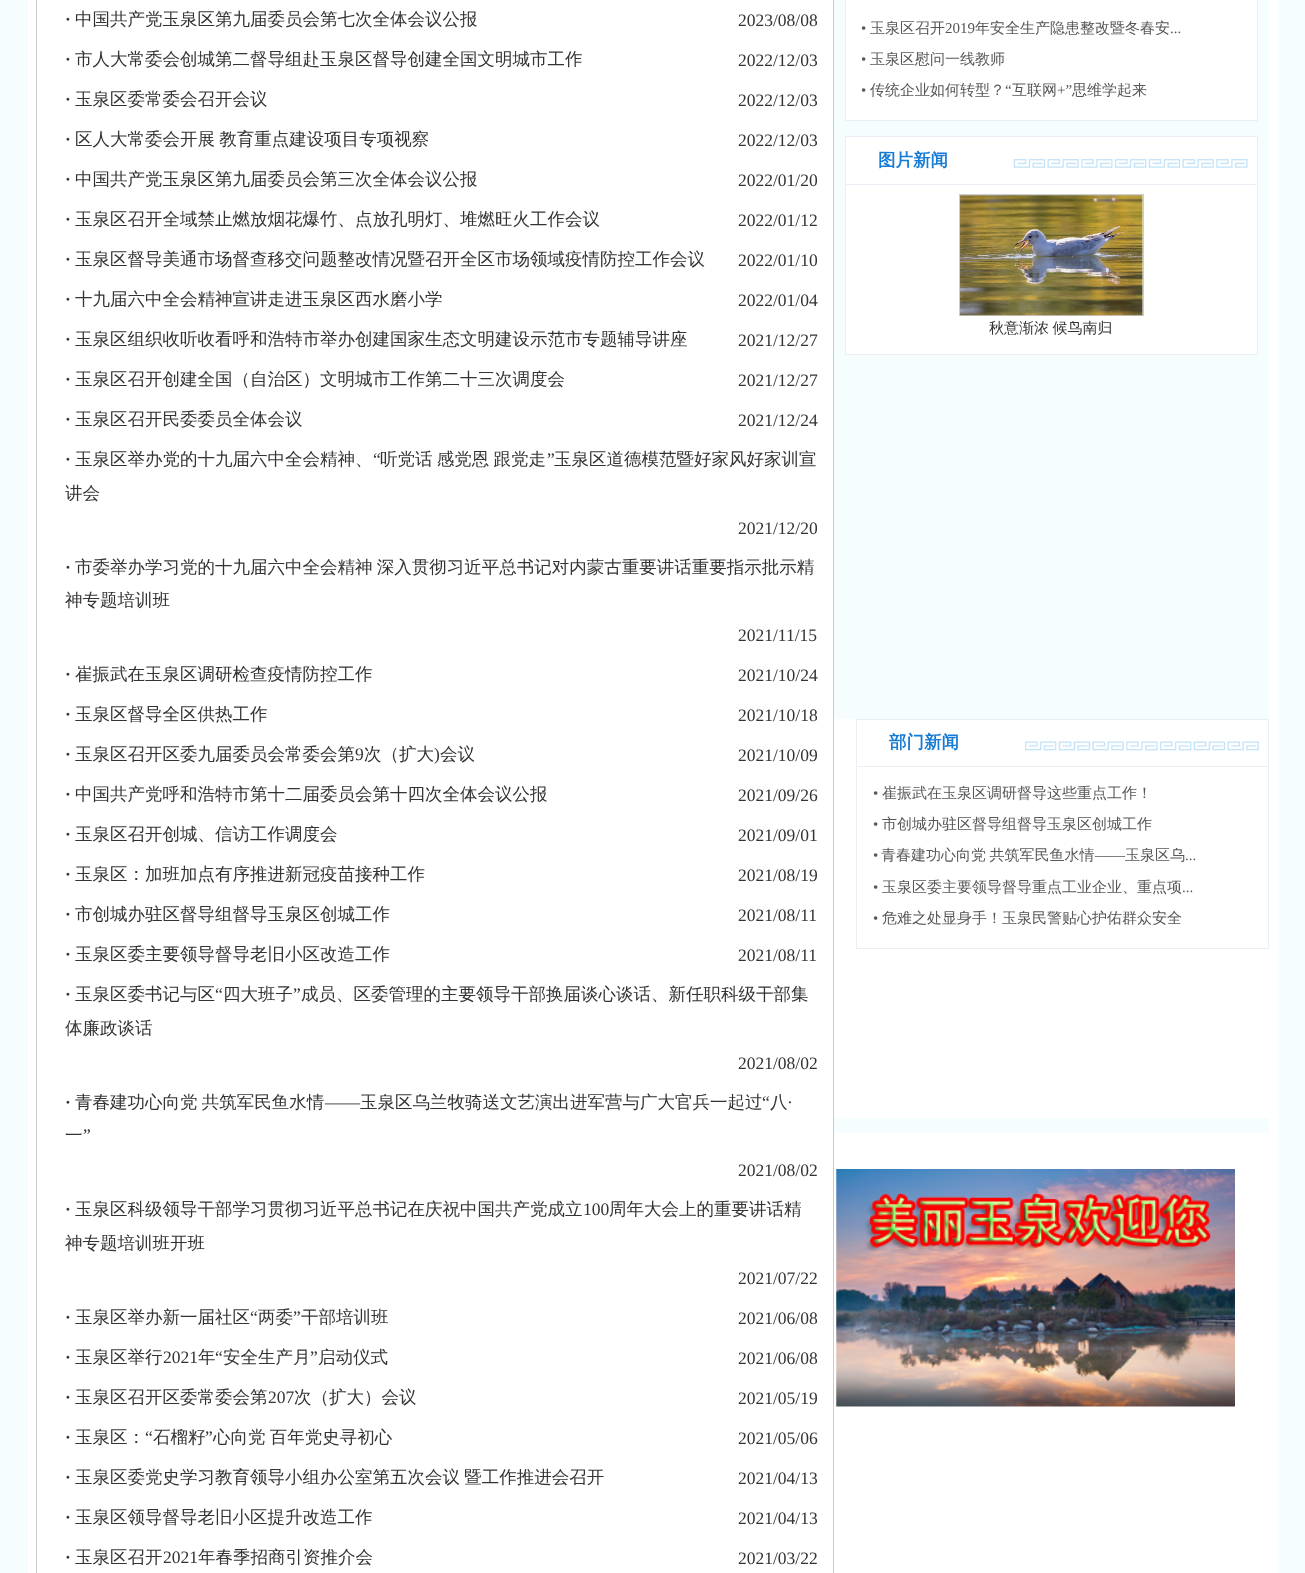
<!DOCTYPE html>
<meta charset="utf-8">
<style>body { margin: 0 } canvas { display: block }</style>
<canvas id="canvas" width="1305" height="1573"></canvas>
<img id="img1" src="img_01.png" hidden>
<img id="img2" src="img_02.png" hidden>
<img id="img3" src="img_03.png" hidden>
<img id="img4" src="img_04.png" hidden>
<script>
window.onload = function () {
	const canvas = document.getElementById("canvas");
	const ctx = canvas.getContext("2d");
	ctx.miterLimit = 4;
	ctx.fontKerning = "normal";
	function txt(s, x, y) {
		ctx.fillText(s, x, y);
	}
	function fill(x, y, w, h) {
		ctx.fillRect(x, y, w, h);
	}
	function img(id, x, y, w, h) {
		ctx.drawImage(document.getElementById(id), x, y, w, h);
	}

	ctx.fillStyle = "#F6FDFF";
	fill(0, 0, 1305, 1573);
	ctx.fillStyle = "#FFFFFF";
	fill(28, 0, 1250, 1573);
	ctx.strokeStyle = "#CCCCCC";
	ctx.strokeRect(36.5, -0.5, 797, 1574);
	ctx.fillStyle = "#F6FDFF";
	fill(834, 0, 435, 719);
	ctx.fillStyle = "#FFFFFF";
	fill(846, 0, 411, 354);
	ctx.strokeStyle = "#EAEFF5";
	ctx.strokeRect(845.5, -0.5, 412, 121);
	ctx.fillStyle = "#F6FDFF";
	fill(846, 121, 411, 15);
	ctx.strokeRect(845.5, 136.5, 412, 218);
	img("img1", 1013, 159, 235, 9);
	ctx.fillStyle = "#EAEFF5";
	fill(846, 184, 410, 1);
	ctx.strokeStyle = "#CCCCCC";
	ctx.strokeRect(959.5, 194.5, 184, 121);
	img("img2", 960, 195, 183, 121);
	ctx.strokeStyle = "#EAEFF5";
	ctx.strokeRect(856.5, 719.5, 412, 229);
	img("img3", 1025, 741, 234, 10);
	fill(858, 766, 410, 1);
	ctx.fillStyle = "#F6FDFF";
	fill(834, 1118, 435, 15);
	img("img4", 836, 1169, 399, 238);
	ctx.font = "bold 17.5px Liberation Serif";
	ctx.fillStyle = "#333333";
	txt("·", 65, 25);
	ctx.font = "500 17.5px WenQuanYi Zen Hei";
	txt("中国共产党玉泉区第九届委员会第七次全体会议公报", 75, 25);
	ctx.font = "17.5px Liberation Serif";
	txt("2023/08/08", 738, 26);
	ctx.font = "bold 17.5px Liberation Serif";
	txt("·", 65, 65);
	ctx.font = "500 17.5px WenQuanYi Zen Hei";
	txt("市人大常委会创城第二督导组赴玉泉区督导创建全国文明城市工作", 75, 65);
	ctx.font = "17.5px Liberation Serif";
	txt("2022/12/03", 738, 66);
	ctx.font = "bold 17.5px Liberation Serif";
	txt("·", 65, 105);
	ctx.font = "500 17.5px WenQuanYi Zen Hei";
	txt("玉泉区委常委会召开会议", 75, 105);
	ctx.font = "17.5px Liberation Serif";
	txt("2022/12/03", 738, 106);
	ctx.font = "bold 17.5px Liberation Serif";
	txt("·", 65, 145);
	ctx.wordSpacing = "-1px";
	ctx.font = "500 17.5px WenQuanYi Zen Hei";
	txt("区人大常委会开展 教育重点建设项目专项视察", 75, 145);
	ctx.wordSpacing = "0px";
	ctx.font = "17.5px Liberation Serif";
	txt("2022/12/03", 738, 146);
	ctx.font = "bold 17.5px Liberation Serif";
	txt("·", 65, 185);
	ctx.font = "500 17.5px WenQuanYi Zen Hei";
	txt("中国共产党玉泉区第九届委员会第三次全体会议公报", 75, 185);
	ctx.font = "17.5px Liberation Serif";
	txt("2022/01/20", 738, 186);
	ctx.font = "bold 17.5px Liberation Serif";
	txt("·", 65, 225);
	ctx.font = "500 17.5px WenQuanYi Zen Hei";
	txt("玉泉区召开全域禁止燃放烟花爆竹、点放孔明灯、堆燃旺火工作会议", 75, 225);
	ctx.font = "17.5px Liberation Serif";
	txt("2022/01/12", 738, 226);
	ctx.font = "bold 17.5px Liberation Serif";
	txt("·", 65, 265);
	ctx.font = "500 17.5px WenQuanYi Zen Hei";
	txt("玉泉区督导美通市场督查移交问题整改情况暨召开全区市场领域疫情防控工作会议", 75, 265);
	ctx.font = "17.5px Liberation Serif";
	txt("2022/01/10", 738, 266);
	ctx.font = "bold 17.5px Liberation Serif";
	txt("·", 65, 305);
	ctx.font = "500 17.5px WenQuanYi Zen Hei";
	txt("十九届六中全会精神宣讲走进玉泉区西水磨小学", 75, 305);
	ctx.font = "17.5px Liberation Serif";
	txt("2022/01/04", 738, 306);
	ctx.font = "bold 17.5px Liberation Serif";
	txt("·", 65, 345);
	ctx.font = "500 17.5px WenQuanYi Zen Hei";
	txt("玉泉区组织收听收看呼和浩特市举办创建国家生态文明建设示范市专题辅导讲座", 75, 345);
	ctx.font = "17.5px Liberation Serif";
	txt("2021/12/27", 738, 346);
	ctx.font = "bold 17.5px Liberation Serif";
	txt("·", 65, 385);
	ctx.font = "500 17.5px WenQuanYi Zen Hei";
	txt("玉泉区召开创建全国（自治区）文明城市工作第二十三次调度会", 75, 385);
	ctx.font = "17.5px Liberation Serif";
	txt("2021/12/27", 738, 386);
	ctx.font = "bold 17.5px Liberation Serif";
	txt("·", 65, 425);
	ctx.font = "500 17.5px WenQuanYi Zen Hei";
	txt("玉泉区召开民委委员全体会议", 75, 425);
	ctx.font = "17.5px Liberation Serif";
	txt("2021/12/24", 738, 426);
	ctx.font = "500 17.5px WenQuanYi Zen Hei";
	txt("玉泉区举办党的十九届六中全会精神、", 75, 465);
	ctx.font = "17.5px Liberation Serif";
	txt("“", 373, 465);
	ctx.wordSpacing = "-1px";
	ctx.font = "500 17.5px WenQuanYi Zen Hei";
	txt("听党话 感党恩 跟党走", 380, 465);
	ctx.wordSpacing = "0px";
	ctx.font = "17.5px Liberation Serif";
	txt("”", 547, 465);
	ctx.font = "500 17.5px WenQuanYi Zen Hei";
	txt("玉泉区道德模范暨好家风好家训宣", 554, 465);
	ctx.font = "bold 17.5px Liberation Serif";
	txt("·", 65, 465);
	ctx.font = "500 17.5px WenQuanYi Zen Hei";
	txt("讲会", 65, 499);
	ctx.font = "17.5px Liberation Serif";
	txt("2021/12/20", 738, 534);
	ctx.font = "bold 17.5px Liberation Serif";
	txt("·", 65, 573);
	ctx.wordSpacing = "-1px";
	ctx.font = "500 17.5px WenQuanYi Zen Hei";
	txt("市委举办学习党的十九届六中全会精神 深入贯彻习近平总书记对内蒙古重要讲话重要指示批示精", 75, 573);
	ctx.wordSpacing = "0px";
	txt("神专题培训班", 65, 606);
	ctx.font = "17.5px Liberation Serif";
	txt("2021/11/15", 738, 641);
	ctx.font = "bold 17.5px Liberation Serif";
	txt("·", 65, 680);
	ctx.font = "500 17.5px WenQuanYi Zen Hei";
	txt("崔振武在玉泉区调研检查疫情防控工作", 75, 680);
	ctx.font = "17.5px Liberation Serif";
	txt("2021/10/24", 738, 681);
	ctx.font = "bold 17.5px Liberation Serif";
	txt("·", 65, 720);
	ctx.font = "500 17.5px WenQuanYi Zen Hei";
	txt("玉泉区督导全区供热工作", 75, 720);
	ctx.font = "17.5px Liberation Serif";
	txt("2021/10/18", 738, 721);
	ctx.font = "bold 17.5px Liberation Serif";
	txt("·", 65, 760);
	ctx.font = "500 17.5px WenQuanYi Zen Hei";
	txt("玉泉区召开区委九届委员会常委会第", 75, 760);
	ctx.font = "17.5px Liberation Serif";
	txt("9", 355, 760);
	ctx.font = "500 17.5px WenQuanYi Zen Hei";
	txt("次（扩大", 364, 760);
	ctx.font = "17.5px Liberation Serif";
	txt(")", 434, 760);
	ctx.font = "500 17.5px WenQuanYi Zen Hei";
	txt("会议", 440, 760);
	ctx.font = "17.5px Liberation Serif";
	txt("2021/10/09", 738, 761);
	ctx.font = "bold 17.5px Liberation Serif";
	txt("·", 65, 800);
	ctx.font = "500 17.5px WenQuanYi Zen Hei";
	txt("中国共产党呼和浩特市第十二届委员会第十四次全体会议公报", 75, 800);
	ctx.font = "17.5px Liberation Serif";
	txt("2021/09/26", 738, 801);
	ctx.font = "bold 17.5px Liberation Serif";
	txt("·", 65, 840);
	ctx.font = "500 17.5px WenQuanYi Zen Hei";
	txt("玉泉区召开创城、信访工作调度会", 75, 840);
	ctx.font = "17.5px Liberation Serif";
	txt("2021/09/01", 738, 841);
	ctx.font = "bold 17.5px Liberation Serif";
	txt("·", 65, 880);
	ctx.font = "500 17.5px WenQuanYi Zen Hei";
	txt("玉泉区：加班加点有序推进新冠疫苗接种工作", 75, 880);
	ctx.font = "17.5px Liberation Serif";
	txt("2021/08/19", 738, 881);
	ctx.font = "bold 17.5px Liberation Serif";
	txt("·", 65, 920);
	ctx.font = "500 17.5px WenQuanYi Zen Hei";
	txt("市创城办驻区督导组督导玉泉区创城工作", 75, 920);
	ctx.font = "17.5px Liberation Serif";
	txt("2021/08/11", 738, 921);
	ctx.font = "bold 17.5px Liberation Serif";
	txt("·", 65, 960);
	ctx.font = "500 17.5px WenQuanYi Zen Hei";
	txt("玉泉区委主要领导督导老旧小区改造工作", 75, 960);
	ctx.font = "17.5px Liberation Serif";
	txt("2021/08/11", 738, 961);
	ctx.font = "500 17.5px WenQuanYi Zen Hei";
	txt("玉泉区委书记与区", 75, 1000);
	ctx.font = "17.5px Liberation Serif";
	txt("“", 215, 1000);
	ctx.font = "500 17.5px WenQuanYi Zen Hei";
	txt("四大班子", 223, 1000);
	ctx.font = "17.5px Liberation Serif";
	txt("”", 293, 1000);
	ctx.font = "500 17.5px WenQuanYi Zen Hei";
	txt("成员、区委管理的主要领导干部换届谈心谈话、新任职科级干部集", 301, 1000);
	ctx.font = "bold 17.5px Liberation Serif";
	txt("·", 65, 1000);
	ctx.font = "500 17.5px WenQuanYi Zen Hei";
	txt("体廉政谈话", 65, 1034);
	ctx.font = "17.5px Liberation Serif";
	txt("2021/08/02", 738, 1069);
	ctx.wordSpacing = "-1px";
	ctx.font = "500 17.5px WenQuanYi Zen Hei";
	txt("青春建功心向党 共筑军民鱼水情", 75, 1108);
	ctx.wordSpacing = "0px";
	ctx.font = "17.5px Liberation Serif";
	txt("“", 762, 1108);
	ctx.font = "500 17.5px WenQuanYi Zen Hei";
	txt("八", 770, 1108);
	ctx.font = "bold 17.5px Liberation Serif";
	txt("·", 65, 1108);
	ctx.font = "17.5px Liberation Serif";
	txt("——", 325, 1108);
	ctx.font = "500 17.5px WenQuanYi Zen Hei";
	txt("玉泉区乌兰牧骑送文艺演出进军营与广大官兵一起过", 360, 1108);
	ctx.font = "17.5px Liberation Serif";
	txt("·", 787, 1108);
	ctx.font = "500 17.5px WenQuanYi Zen Hei";
	txt("一", 65, 1141);
	ctx.font = "17.5px Liberation Serif";
	txt("”", 83, 1141);
	txt("2021/08/02", 738, 1176);
	ctx.font = "bold 17.5px Liberation Serif";
	txt("·", 65, 1215);
	ctx.font = "500 17.5px WenQuanYi Zen Hei";
	txt("玉泉区科级领导干部学习贯彻习近平总书记在庆祝中国共产党成立", 75, 1215);
	ctx.font = "17.5px Liberation Serif";
	txt("100", 583, 1215);
	ctx.font = "500 17.5px WenQuanYi Zen Hei";
	txt("周年大会上的重要讲话精", 609, 1215);
	txt("神专题培训班开班", 65, 1249);
	ctx.font = "17.5px Liberation Serif";
	txt("2021/07/22", 738, 1284);
	ctx.font = "500 17.5px WenQuanYi Zen Hei";
	txt("玉泉区举办新一届社区", 75, 1323);
	ctx.font = "17.5px Liberation Serif";
	txt("“", 250, 1323);
	ctx.font = "500 17.5px WenQuanYi Zen Hei";
	txt("两委", 258, 1323);
	ctx.font = "17.5px Liberation Serif";
	txt("”", 293, 1323);
	ctx.font = "500 17.5px WenQuanYi Zen Hei";
	txt("干部培训班", 301, 1323);
	ctx.font = "bold 17.5px Liberation Serif";
	txt("·", 65, 1323);
	ctx.font = "17.5px Liberation Serif";
	txt("2021/06/08", 738, 1324);
	ctx.font = "500 17.5px WenQuanYi Zen Hei";
	txt("玉泉区举行", 75, 1363);
	ctx.font = "17.5px Liberation Serif";
	txt("2021", 163, 1363);
	ctx.font = "500 17.5px WenQuanYi Zen Hei";
	txt("年", 198, 1363);
	ctx.font = "17.5px Liberation Serif";
	txt("“", 215, 1363);
	ctx.font = "500 17.5px WenQuanYi Zen Hei";
	txt("安全生产月", 223, 1363);
	ctx.font = "17.5px Liberation Serif";
	txt("”", 310, 1363);
	ctx.font = "500 17.5px WenQuanYi Zen Hei";
	txt("启动仪式", 318, 1363);
	ctx.font = "bold 17.5px Liberation Serif";
	txt("·", 65, 1363);
	ctx.font = "17.5px Liberation Serif";
	txt("2021/06/08", 738, 1364);
	ctx.font = "bold 17.5px Liberation Serif";
	txt("·", 65, 1403);
	ctx.font = "500 17.5px WenQuanYi Zen Hei";
	txt("玉泉区召开区委常委会第", 75, 1403);
	ctx.font = "17.5px Liberation Serif";
	txt("207", 268, 1403);
	ctx.font = "500 17.5px WenQuanYi Zen Hei";
	txt("次（扩大）会议", 294, 1403);
	ctx.font = "17.5px Liberation Serif";
	txt("2021/05/19", 738, 1404);
	ctx.font = "500 17.5px WenQuanYi Zen Hei";
	txt("玉泉区：", 75, 1443);
	ctx.font = "17.5px Liberation Serif";
	txt("“", 145, 1443);
	ctx.font = "500 17.5px WenQuanYi Zen Hei";
	txt("石榴籽", 153, 1443);
	ctx.font = "17.5px Liberation Serif";
	txt("”", 205, 1443);
	ctx.wordSpacing = "-1px";
	ctx.font = "500 17.5px WenQuanYi Zen Hei";
	txt("心向党 百年党史寻初心", 213, 1443);
	ctx.wordSpacing = "0px";
	ctx.font = "bold 17.5px Liberation Serif";
	txt("·", 65, 1443);
	ctx.font = "17.5px Liberation Serif";
	txt("2021/05/06", 738, 1444);
	ctx.font = "bold 17.5px Liberation Serif";
	txt("·", 65, 1483);
	ctx.wordSpacing = "-1px";
	ctx.font = "500 17.5px WenQuanYi Zen Hei";
	txt("玉泉区委党史学习教育领导小组办公室第五次会议 暨工作推进会召开", 75, 1483);
	ctx.wordSpacing = "0px";
	ctx.font = "17.5px Liberation Serif";
	txt("2021/04/13", 738, 1484);
	ctx.font = "bold 17.5px Liberation Serif";
	txt("·", 65, 1523);
	ctx.font = "500 17.5px WenQuanYi Zen Hei";
	txt("玉泉区领导督导老旧小区提升改造工作", 75, 1523);
	ctx.font = "17.5px Liberation Serif";
	txt("2021/04/13", 738, 1524);
	ctx.font = "bold 17.5px Liberation Serif";
	txt("·", 65, 1563);
	ctx.font = "500 17.5px WenQuanYi Zen Hei";
	txt("玉泉区召开", 75, 1563);
	ctx.font = "17.5px Liberation Serif";
	txt("2021", 163, 1563);
	ctx.font = "500 17.5px WenQuanYi Zen Hei";
	txt("年春季招商引资推介会", 198, 1563);
	ctx.font = "17.5px Liberation Serif";
	txt("2021/03/22", 738, 1564);
	ctx.font = "15px Liberation Serif";
	ctx.fillStyle = "#575757";
	txt("•", 861, 33);
	ctx.font = "500 15px WenQuanYi Zen Hei";
	txt("玉泉区召开", 870, 33);
	ctx.font = "15px Liberation Serif";
	txt("2019", 945, 33);
	ctx.font = "500 15px WenQuanYi Zen Hei";
	txt("年安全生产隐患整改暨冬春安", 975, 33);
	ctx.font = "15px Liberation Serif";
	txt("...", 1170, 33);
	txt("•", 861, 64);
	ctx.font = "500 15px WenQuanYi Zen Hei";
	txt("玉泉区慰问一线教师", 870, 64);
	ctx.font = "15px Liberation Serif";
	txt("•", 861, 95);
	ctx.font = "500 15px WenQuanYi Zen Hei";
	txt("传统企业如何转型？", 870, 95);
	ctx.font = "15px Liberation Serif";
	txt("“", 1005, 95);
	ctx.font = "500 15px WenQuanYi Zen Hei";
	txt("互联网", 1012, 95);
	ctx.font = "15px Liberation Serif";
	txt("+”", 1057, 95);
	ctx.font = "500 15px WenQuanYi Zen Hei";
	txt("思维学起来", 1072, 95);
	ctx.font = "bold 17.5px WenQuanYi Zen Hei";
	ctx.fillStyle = "#157BD4";
	txt("图片新闻", 878, 166);
	ctx.wordSpacing = "-1px";
	ctx.font = "500 15px WenQuanYi Zen Hei";
	ctx.fillStyle = "#333333";
	txt("秋意渐浓 候鸟南归", 989, 333);
	ctx.wordSpacing = "0px";
	ctx.font = "bold 17.5px WenQuanYi Zen Hei";
	ctx.fillStyle = "#157BD4";
	txt("部门新闻", 889, 748);
	ctx.font = "15px Liberation Serif";
	ctx.fillStyle = "#575757";
	txt("•", 873, 798);
	ctx.font = "500 15px WenQuanYi Zen Hei";
	txt("崔振武在玉泉区调研督导这些重点工作！", 882, 798);
	ctx.font = "15px Liberation Serif";
	txt("•", 873, 829);
	ctx.font = "500 15px WenQuanYi Zen Hei";
	txt("市创城办驻区督导组督导玉泉区创城工作", 882, 829);
	ctx.font = "15px Liberation Serif";
	txt("•", 873, 860);
	ctx.wordSpacing = "-1px";
	ctx.font = "500 15px WenQuanYi Zen Hei";
	txt("青春建功心向党 共筑军民鱼水情", 881, 860);
	ctx.wordSpacing = "0px";
	ctx.font = "15px Liberation Serif";
	txt("——", 1095, 860);
	ctx.font = "500 15px WenQuanYi Zen Hei";
	txt("玉泉区乌", 1125, 860);
	ctx.font = "15px Liberation Serif";
	txt("...", 1185, 860);
	txt("•", 873, 892);
	ctx.font = "500 15px WenQuanYi Zen Hei";
	txt("玉泉区委主要领导督导重点工业企业、重点项", 882, 892);
	ctx.font = "15px Liberation Serif";
	txt("...", 1182, 892);
	txt("•", 873, 923);
	ctx.font = "500 15px WenQuanYi Zen Hei";
	txt("危难之处显身手！玉泉民警贴心护佑群众安全", 882, 923);
};
</script>
